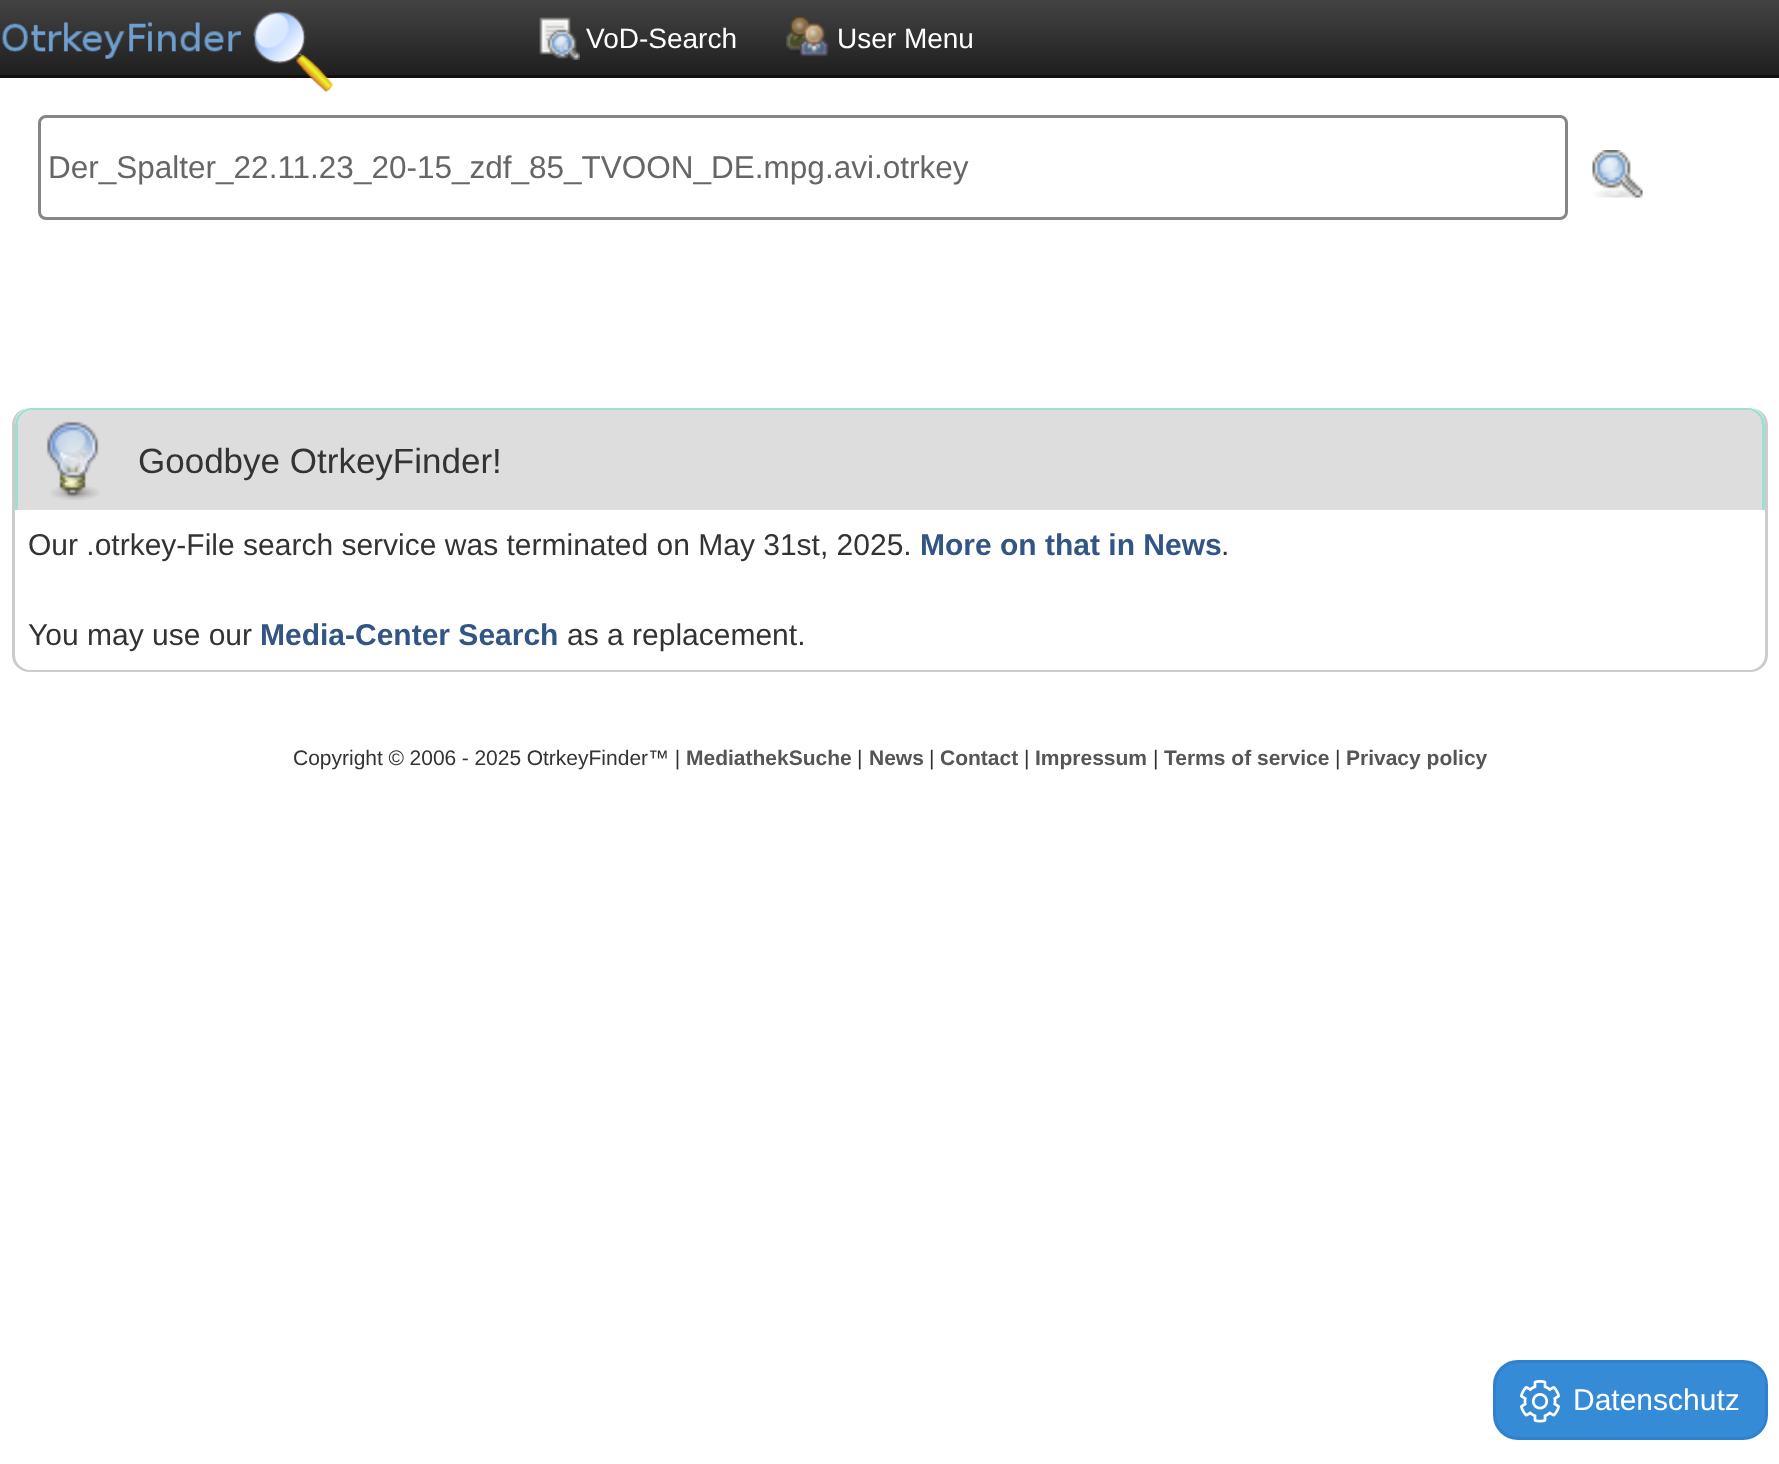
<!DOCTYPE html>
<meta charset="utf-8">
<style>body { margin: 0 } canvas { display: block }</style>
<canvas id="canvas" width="1779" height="1464"></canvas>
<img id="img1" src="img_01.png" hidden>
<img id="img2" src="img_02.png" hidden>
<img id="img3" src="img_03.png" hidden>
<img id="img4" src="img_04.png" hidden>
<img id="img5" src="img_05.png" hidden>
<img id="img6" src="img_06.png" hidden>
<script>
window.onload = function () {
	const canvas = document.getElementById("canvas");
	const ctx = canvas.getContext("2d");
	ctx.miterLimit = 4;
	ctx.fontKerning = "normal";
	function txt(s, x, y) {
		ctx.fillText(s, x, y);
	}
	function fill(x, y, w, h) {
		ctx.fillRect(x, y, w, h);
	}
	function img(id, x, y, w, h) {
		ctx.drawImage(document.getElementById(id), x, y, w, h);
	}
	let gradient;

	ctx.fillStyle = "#FFFFFF";
	fill(0, 0, 1779, 1464);
	gradient = ctx.createLinearGradient(890, 0, 890, 75);
	gradient.addColorStop(0, "#434343");
	gradient.addColorStop(1, "#1F1F1F");
	ctx.fillStyle = gradient;
	fill(0, 0, 1779, 75);
	ctx.fillStyle = "#111111";
	fill(0, 75, 1779, 3);
	img("img1", 2, 12, 331, 80);
	img("img2", 539, 17, 41, 43);
	img("img3", 786, 16, 43, 41);
	ctx.beginPath();
	ctx.roundRect(39.5, 116.5, 1527, 102, 6.5);
	ctx.strokeStyle = "#868686";
	ctx.lineWidth = 3;
	ctx.stroke();
	img("img4", 1592, 150, 51, 48);
	ctx.fillStyle = "#CCCCCC";
	ctx.beginPath();
	ctx.moveTo(30, 408);
	ctx.lineTo(1750, 408);
	ctx.bezierCurveTo(1760, 408, 1768, 415, 1768, 425);
	ctx.lineTo(1768, 655);
	ctx.bezierCurveTo(1768, 665, 1760, 672, 1750, 672);
	ctx.lineTo(30, 672);
	ctx.bezierCurveTo(20, 672, 12, 665, 12, 655);
	ctx.lineTo(12, 425);
	ctx.bezierCurveTo(12, 415, 20, 408, 30, 408);
	ctx.closePath();
	ctx.moveTo(30, 408);
	ctx.lineTo(1750, 408);
	ctx.bezierCurveTo(1758, 408, 1765, 415, 1765, 425);
	ctx.lineTo(1765, 655);
	ctx.bezierCurveTo(1765, 663, 1758, 670, 1750, 670);
	ctx.lineTo(30, 670);
	ctx.bezierCurveTo(22, 670, 15, 663, 15, 655);
	ctx.lineTo(15, 425);
	ctx.bezierCurveTo(15, 415, 22, 408, 30, 408);
	ctx.closePath();
	ctx.fill("evenodd");
	ctx.fillStyle = "#DDDDDD";
	ctx.beginPath();
	ctx.roundRect(18, 410, 1745, 100, [15, 15, 0, 0]);
	ctx.fill();
	ctx.fillStyle = "#9FDED1";
	ctx.beginPath();
	ctx.moveTo(32, 408);
	ctx.lineTo(1748, 408);
	ctx.bezierCurveTo(1757, 408, 1765, 415, 1765, 425);
	ctx.lineTo(1765, 510);
	ctx.lineTo(15, 510);
	ctx.lineTo(15, 425);
	ctx.bezierCurveTo(15, 415, 23, 408, 32, 408);
	ctx.closePath();
	ctx.moveTo(32, 410);
	ctx.lineTo(1748, 410);
	ctx.bezierCurveTo(1756, 410, 1762, 417, 1762, 425);
	ctx.lineTo(1762, 510);
	ctx.lineTo(18, 510);
	ctx.lineTo(18, 425);
	ctx.bezierCurveTo(18, 417, 24, 410, 32, 410);
	ctx.closePath();
	ctx.fill("evenodd");
	img("img5", 46, 421, 54, 79);
	ctx.fillStyle = "#368BD6";
	ctx.beginPath();
	ctx.roundRect(1494.5, 1361.5, 272, 77, 23.5);
	ctx.fill();
	ctx.strokeStyle = "#3080D0";
	ctx.stroke();
	img("img6", 1520, 1380, 40, 43);
	ctx.font = "28px Liberation Sans";
	ctx.fillStyle = "#FFFFFF";
	txt("VoD-Search", 586, 48);
	txt("User Menu", 837, 48);
	ctx.font = "31.5px Liberation Sans";
	ctx.fillStyle = "#666666";
	txt("Der_Spalter_22.11.23_20-15_zdf_85_TVOON_DE.mpg.avi.otrkey", 48, 178);
	ctx.font = "35px Liberation Sans";
	ctx.fillStyle = "#333333";
	txt("Goodbye OtrkeyFinder!", 138, 473);
	ctx.font = "30px Liberation Sans";
	txt("Our .otrkey-File search service was terminated on May 31st, 2025.", 28, 555);
	ctx.font = "bold 30px Liberation Sans";
	ctx.fillStyle = "#325585";
	txt("More on that in News", 920, 555);
	ctx.font = "30px Liberation Sans";
	ctx.fillStyle = "#333333";
	txt(".", 1221, 555);
	txt("You may use our", 28, 645);
	ctx.font = "bold 30px Liberation Sans";
	ctx.fillStyle = "#325585";
	txt("Media-Center Search", 260, 645);
	ctx.font = "30px Liberation Sans";
	ctx.fillStyle = "#333333";
	txt("as a replacement.", 567, 645);
	ctx.wordSpacing = "-0.25px";
	ctx.font = "21px Liberation Sans";
	txt("Copyright © 2006 - 2025 OtrkeyFinder™ |", 293, 765);
	ctx.wordSpacing = "0px";
	ctx.font = "bold 21px Liberation Sans";
	ctx.fillStyle = "#555555";
	txt("MediathekSuche", 686, 765);
	ctx.font = "21px Liberation Sans";
	ctx.fillStyle = "#333333";
	txt("|", 857, 765);
	ctx.font = "bold 21px Liberation Sans";
	ctx.fillStyle = "#555555";
	txt("News", 869, 765);
	ctx.font = "21px Liberation Sans";
	ctx.fillStyle = "#333333";
	txt("|", 929, 765);
	ctx.font = "bold 21px Liberation Sans";
	ctx.fillStyle = "#555555";
	txt("Contact", 940, 765);
	ctx.font = "21px Liberation Sans";
	ctx.fillStyle = "#333333";
	txt("|", 1024, 765);
	ctx.font = "bold 21px Liberation Sans";
	ctx.fillStyle = "#555555";
	txt("Impressum", 1035, 765);
	ctx.font = "21px Liberation Sans";
	ctx.fillStyle = "#333333";
	txt("|", 1153, 765);
	ctx.font = "bold 21px Liberation Sans";
	ctx.fillStyle = "#555555";
	txt("Terms of service", 1164, 765);
	ctx.font = "21px Liberation Sans";
	ctx.fillStyle = "#333333";
	txt("|", 1335, 765);
	ctx.font = "bold 21px Liberation Sans";
	ctx.fillStyle = "#555555";
	txt("Privacy policy", 1346, 765);
	ctx.font = "30px Liberation Sans";
	ctx.fillStyle = "#FFFFFF";
	txt("Datenschutz", 1573, 1410);
};
</script>
